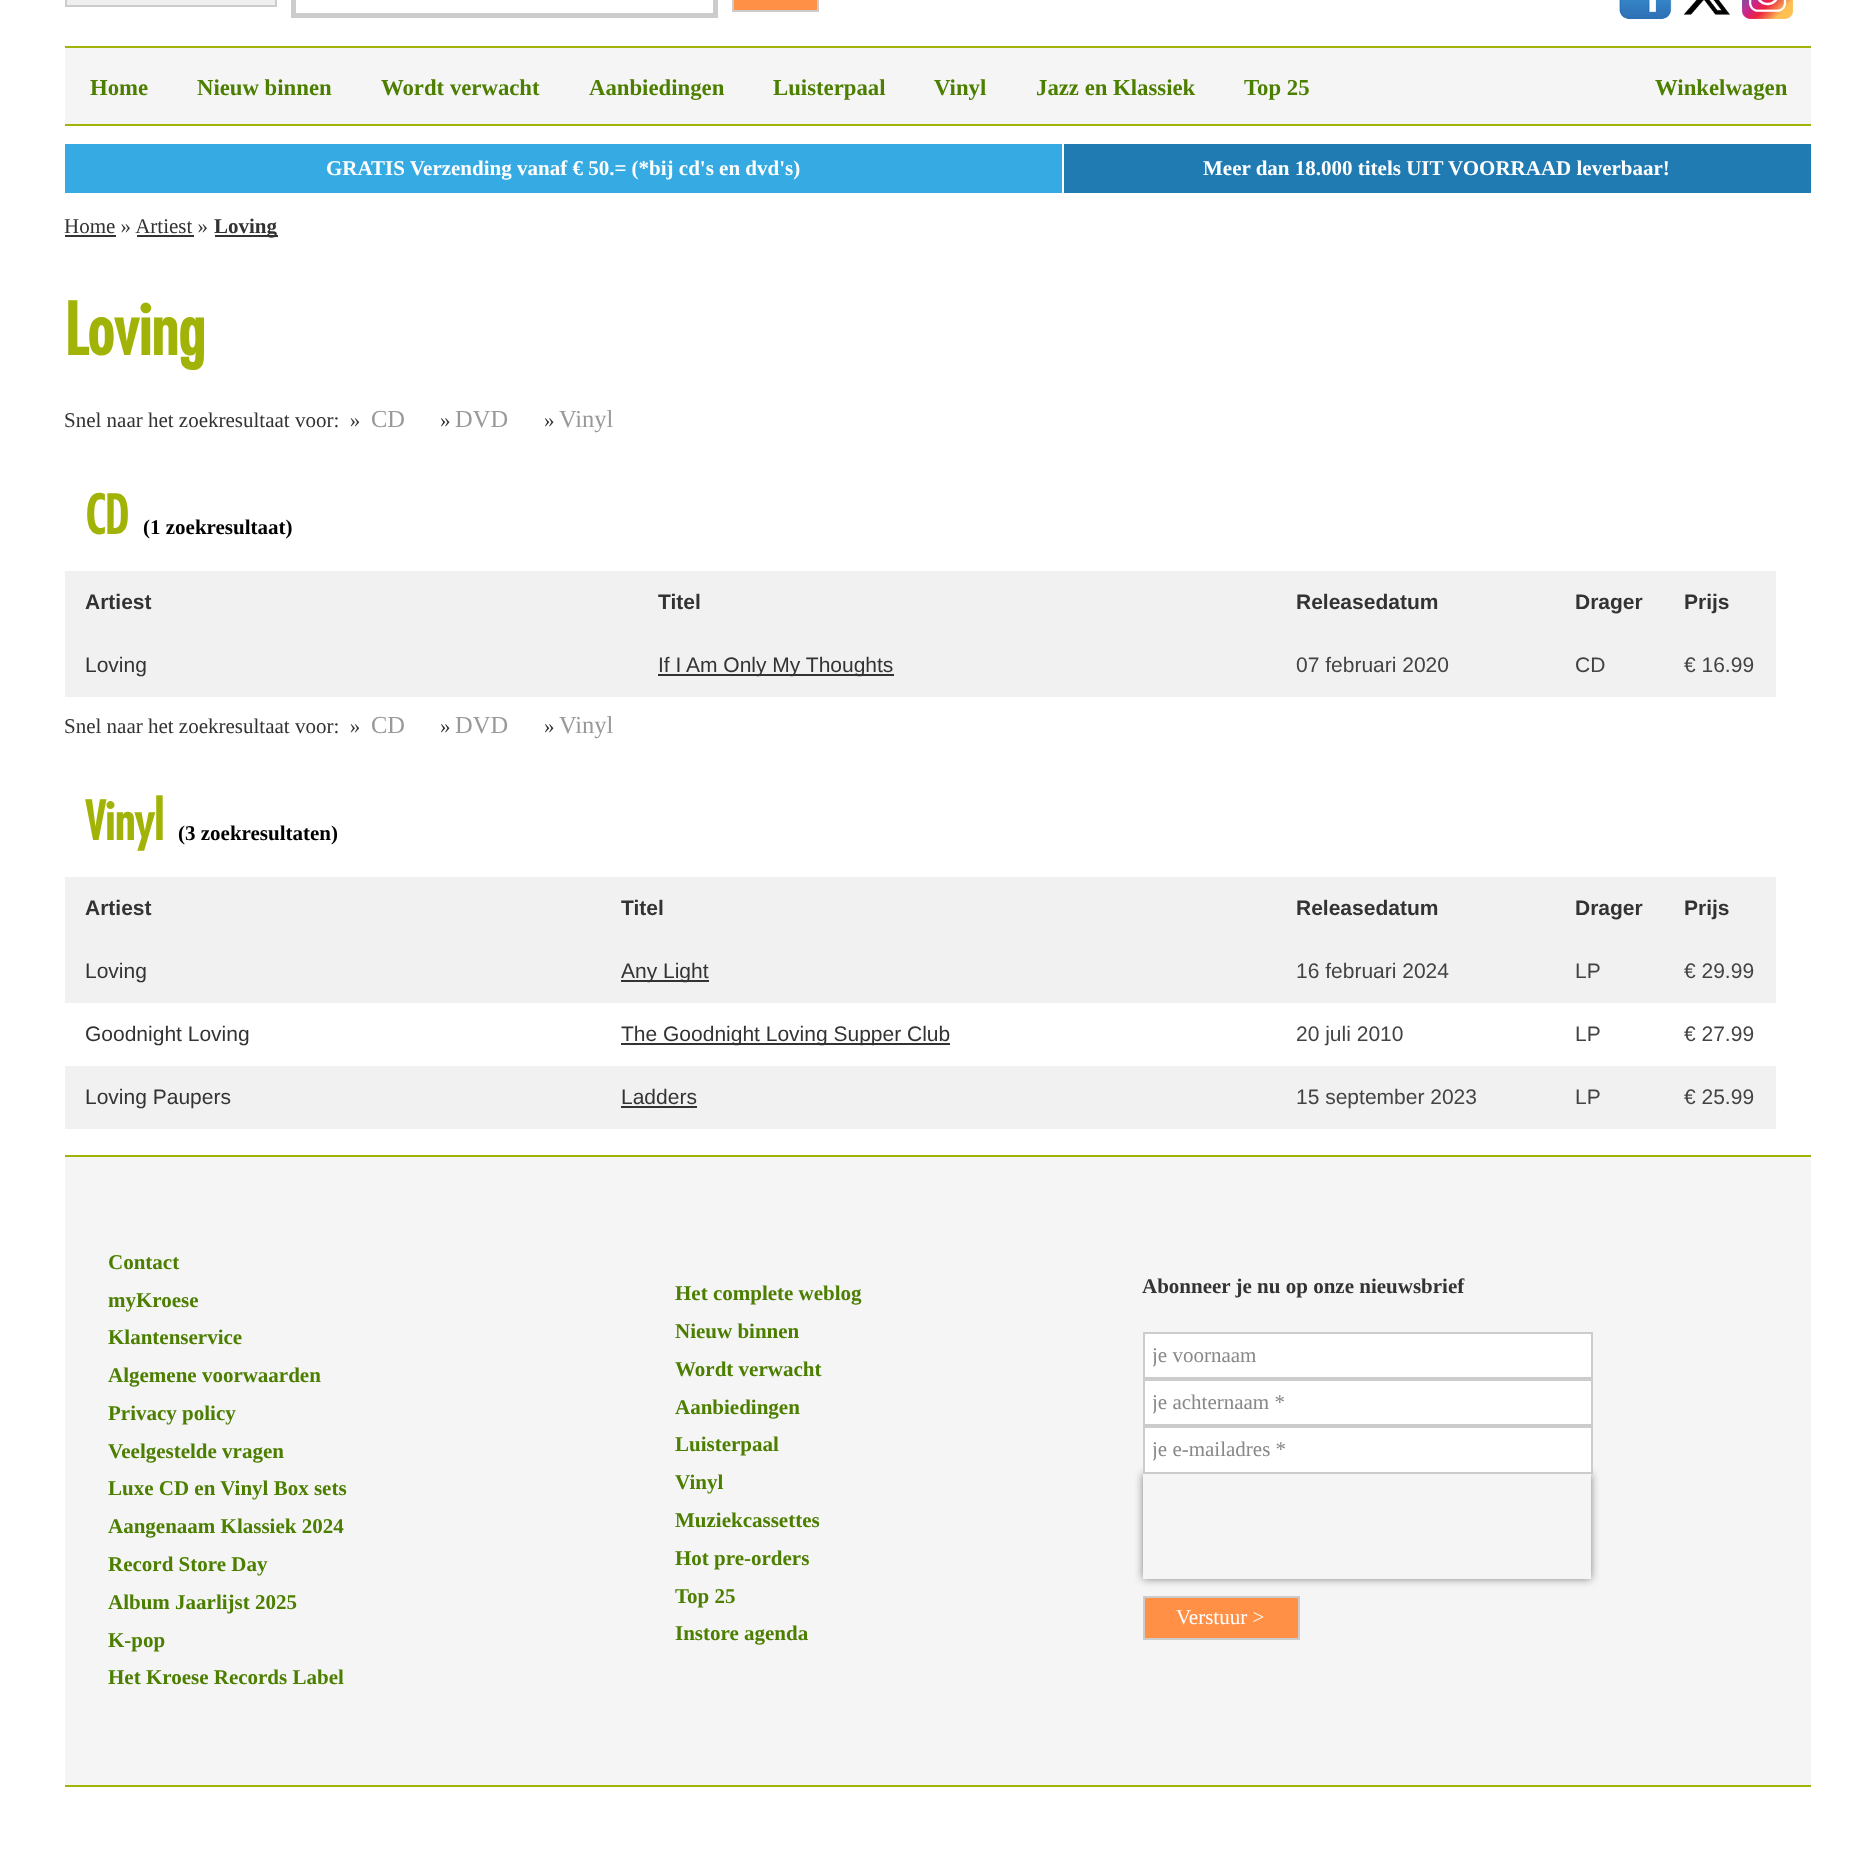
<!DOCTYPE html>
<meta charset="utf-8">
<style>body { margin: 0 } canvas { display: block }</style>
<canvas id="canvas" width="1873" height="1859"></canvas>
<img id="img1" src="img_01.png" hidden>
<img id="img2" src="img_02.png" hidden>
<img id="img3" src="img_03.png" hidden>
<script>
window.onload = function () {
	const canvas = document.getElementById("canvas");
	const ctx = canvas.getContext("2d");
	ctx.miterLimit = 4;
	ctx.fontKerning = "normal";
	function txt(s, x, y) {
		ctx.fillText(s, x, y);
	}
	function fill(x, y, w, h) {
		ctx.fillRect(x, y, w, h);
	}
	function img(id, x, y, w, h) {
		ctx.drawImage(document.getElementById(id), x, y, w, h);
	}

	ctx.fillStyle = "#FFFFFF";
	fill(0, 0, 1873, 1859);
	ctx.fillStyle = "#EFEFEF";
	ctx.beginPath();
	ctx.rect(66, -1, 210, 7);
	ctx.fill();
	ctx.strokeStyle = "#CCCCCC";
	ctx.lineWidth = 2;
	ctx.stroke();
	ctx.lineWidth = 5;
	ctx.strokeRect(293.5, -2.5, 422, 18);
	ctx.fillStyle = "#FF9045";
	ctx.beginPath();
	ctx.rect(733, -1, 85, 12);
	ctx.fill();
	ctx.lineWidth = 2;
	ctx.stroke();
	img("img1", 1619, 0, 53, 20);
	img("img2", 1683, 0, 47, 15);
	img("img3", 1742, 0, 51, 19);
	ctx.fillStyle = "#F5F5F5";
	fill(65, 48, 1746, 76);
	ctx.fillStyle = "#A1B307";
	fill(65, 46, 1746, 2);
	fill(65, 124, 1746, 2);
	ctx.fillStyle = "#36AAE2";
	fill(65, 144, 997, 49);
	ctx.fillStyle = "#207BB3";
	fill(1064, 144, 747, 49);
	ctx.fillStyle = "#333333";
	fill(65, 235, 51, 2);
	fill(215, 235, 63, 2);
	fill(137, 235, 57, 2);
	ctx.fillStyle = "#F1F1F1";
	fill(65, 571, 1711, 126);
	ctx.fillStyle = "#333333";
	fill(658, 674, 236, 2);
	ctx.fillStyle = "#F1F1F1";
	fill(65, 877, 1711, 126);
	ctx.fillStyle = "#333333";
	fill(621, 980, 88, 2);
	fill(621, 1043, 329, 2);
	ctx.fillStyle = "#F1F1F1";
	fill(65, 1066, 1711, 63);
	ctx.fillStyle = "#333333";
	fill(621, 1106, 76, 2);
	ctx.fillStyle = "#F5F5F5";
	fill(65, 1157, 1746, 628);
	ctx.fillStyle = "#A1B307";
	fill(65, 1155, 1746, 2);
	fill(65, 1785, 1746, 2);
	ctx.fillStyle = "#FFFFFF";
	ctx.beginPath();
	ctx.rect(1144, 1333, 448, 45);
	ctx.fill();
	ctx.stroke();
	ctx.beginPath();
	ctx.rect(1144, 1380, 448, 45);
	ctx.fill();
	ctx.stroke();
	ctx.save();
	ctx.beginPath();
	ctx.moveTo(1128, 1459);
	ctx.lineTo(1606, 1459);
	ctx.lineTo(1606, 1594);
	ctx.lineTo(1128, 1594);
	ctx.closePath();
	ctx.moveTo(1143, 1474);
	ctx.lineTo(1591, 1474);
	ctx.lineTo(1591, 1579);
	ctx.lineTo(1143, 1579);
	ctx.closePath();
	ctx.clip("evenodd");
	ctx.fillStyle = "#808080";
	ctx.filter = "blur(4.5px)";
	ctx.beginPath();
	ctx.rect(1143, 1474, 448, 105);
	ctx.fill();
	ctx.filter = "none";
	ctx.restore();
	ctx.beginPath();
	ctx.rect(1144, 1427, 448, 46);
	ctx.fill();
	ctx.stroke();
	ctx.fillStyle = "#FF9045";
	ctx.beginPath();
	ctx.rect(1144, 1597, 155, 42);
	ctx.fill();
	ctx.stroke();
	ctx.font = "bold 22.75px Liberation Serif";
	ctx.fillStyle = "#4C7E00";
	txt("Home", 90, 95);
	txt("Nieuw binnen", 197, 95);
	txt("Wordt verwacht", 381, 95);
	txt("Aanbiedingen", 589, 95);
	txt("Luisterpaal", 773, 95);
	txt("Vinyl", 934, 95);
	txt("Jazz en Klassiek", 1036, 95);
	txt("Top 25", 1244, 95);
	txt("Winkelwagen", 1655, 95);
	ctx.font = "bold 21px Liberation Serif";
	ctx.fillStyle = "#FFFFFF";
	txt("GRATIS Verzending vanaf € 50.= (*bij cd's en dvd's)", 326, 175);
	txt("Meer dan 18.000 titels UIT VOORRAAD leverbaar!", 1203, 175);
	ctx.font = "21px Liberation Serif";
	ctx.fillStyle = "#333333";
	txt("Home » Artiest »", 64, 233);
	ctx.font = "bold 21px Liberation Serif";
	txt("Loving", 214, 233);
	ctx.font = "bold 70px Futura";
	ctx.fillStyle = "#A1B307";
	txt("Loving", 64, 355);
	ctx.font = "21px Liberation Serif";
	ctx.fillStyle = "#333333";
	txt("Snel naar het zoekresultaat voor:  »", 64, 427);
	ctx.font = "24.5px Liberation Serif";
	ctx.fillStyle = "#999999";
	txt("CD", 371, 427);
	ctx.font = "21px Liberation Serif";
	ctx.fillStyle = "#333333";
	txt("»", 440, 427);
	ctx.font = "24.5px Liberation Serif";
	ctx.fillStyle = "#999999";
	txt("DVD", 455, 427);
	ctx.font = "21px Liberation Serif";
	ctx.fillStyle = "#333333";
	txt("»", 544, 427);
	ctx.font = "24.5px Liberation Serif";
	ctx.fillStyle = "#999999";
	txt("Vinyl", 559, 427);
	ctx.font = "bold 52px Futura";
	ctx.fillStyle = "#A1B307";
	txt("CD", 85, 534);
	ctx.font = "bold 21px Liberation Serif";
	ctx.fillStyle = "#000000";
	txt("(1 zoekresultaat)", 143, 534);
	ctx.font = "bold 21px Liberation Sans";
	ctx.fillStyle = "#333333";
	txt("Artiest", 85, 609);
	txt("Titel", 658, 609);
	txt("Releasedatum", 1296, 609);
	txt("Drager", 1575, 609);
	txt("Prijs", 1684, 609);
	ctx.font = "21px Liberation Sans";
	txt("Loving", 85, 672);
	txt("If I Am Only My Thoughts", 658, 672);
	ctx.fillStyle = "#434343";
	txt("07 februari 2020", 1296, 672);
	txt("CD", 1575, 672);
	txt("€ 16.99", 1684, 672);
	ctx.font = "21px Liberation Serif";
	ctx.fillStyle = "#333333";
	txt("Snel naar het zoekresultaat voor:  »", 64, 733);
	ctx.font = "24.5px Liberation Serif";
	ctx.fillStyle = "#999999";
	txt("CD", 371, 733);
	ctx.font = "21px Liberation Serif";
	ctx.fillStyle = "#333333";
	txt("»", 440, 733);
	ctx.font = "24.5px Liberation Serif";
	ctx.fillStyle = "#999999";
	txt("DVD", 455, 733);
	ctx.font = "21px Liberation Serif";
	ctx.fillStyle = "#333333";
	txt("»", 544, 733);
	ctx.font = "24.5px Liberation Serif";
	ctx.fillStyle = "#999999";
	txt("Vinyl", 559, 733);
	ctx.font = "bold 52px Futura";
	ctx.fillStyle = "#A1B307";
	txt("Vinyl", 85, 840);
	ctx.font = "bold 21px Liberation Serif";
	ctx.fillStyle = "#000000";
	txt("(3 zoekresultaten)", 178, 840);
	ctx.font = "bold 21px Liberation Sans";
	ctx.fillStyle = "#333333";
	txt("Artiest", 85, 915);
	txt("Titel", 621, 915);
	txt("Releasedatum", 1296, 915);
	txt("Drager", 1575, 915);
	txt("Prijs", 1684, 915);
	ctx.font = "21px Liberation Sans";
	txt("Loving", 85, 978);
	txt("Any Light", 621, 978);
	ctx.fillStyle = "#434343";
	txt("16 februari 2024", 1296, 978);
	txt("LP", 1575, 978);
	txt("€ 29.99", 1684, 978);
	ctx.fillStyle = "#333333";
	txt("Goodnight Loving", 85, 1041);
	txt("The Goodnight Loving Supper Club", 621, 1041);
	ctx.fillStyle = "#434343";
	txt("20 juli 2010", 1296, 1041);
	txt("LP", 1575, 1041);
	txt("€ 27.99", 1684, 1041);
	ctx.fillStyle = "#333333";
	txt("Loving Paupers", 85, 1104);
	txt("Ladders", 621, 1104);
	ctx.fillStyle = "#434343";
	txt("15 september 2023", 1296, 1104);
	txt("LP", 1575, 1104);
	txt("€ 25.99", 1684, 1104);
	ctx.font = "bold 21px Liberation Serif";
	ctx.fillStyle = "#4C7E00";
	txt("Contact", 108, 1269);
	txt("myKroese", 108, 1307);
	txt("Klantenservice", 108, 1344);
	txt("Algemene voorwaarden", 108, 1382);
	txt("Privacy policy", 108, 1420);
	txt("Veelgestelde vragen", 108, 1458);
	txt("Luxe CD en Vinyl Box sets", 108, 1495);
	txt("Aangenaam Klassiek 2024", 108, 1533);
	txt("Record Store Day", 108, 1571);
	txt("Album Jaarlijst 2025", 108, 1609);
	txt("K-pop", 108, 1647);
	txt("Het Kroese Records Label", 108, 1684);
	txt("Het complete weblog", 675, 1300);
	txt("Nieuw binnen", 675, 1338);
	txt("Wordt verwacht", 675, 1376);
	txt("Aanbiedingen", 675, 1414);
	txt("Luisterpaal", 675, 1451);
	txt("Vinyl", 675, 1489);
	txt("Muziekcassettes", 675, 1527);
	txt("Hot pre-orders", 675, 1565);
	txt("Top 25", 675, 1603);
	txt("Instore agenda", 675, 1640);
	ctx.fillStyle = "#333333";
	txt("Abonneer je nu op onze nieuwsbrief", 1142, 1293);
	ctx.save();
	ctx.beginPath();
	ctx.rect(1153, 1342, 429, 27);
	ctx.clip();
	ctx.font = "21px Liberation Serif";
	ctx.fillStyle = "#888888";
	txt("je voornaam", 1152, 1362);
	ctx.restore();
	ctx.save();
	ctx.beginPath();
	ctx.rect(1153, 1390, 429, 26);
	ctx.clip();
	ctx.font = "21px Liberation Serif";
	ctx.fillStyle = "#888888";
	txt("je achternaam *", 1152, 1409);
	ctx.restore();
	ctx.save();
	ctx.beginPath();
	ctx.rect(1153, 1437, 429, 26);
	ctx.clip();
	ctx.font = "21px Liberation Serif";
	ctx.fillStyle = "#888888";
	txt("je e-mailadres *", 1152, 1456);
	ctx.restore();
	ctx.font = "21px Liberation Serif";
	ctx.fillStyle = "#FFFFFF";
	txt("Verstuur >", 1176, 1624);
};
</script>
